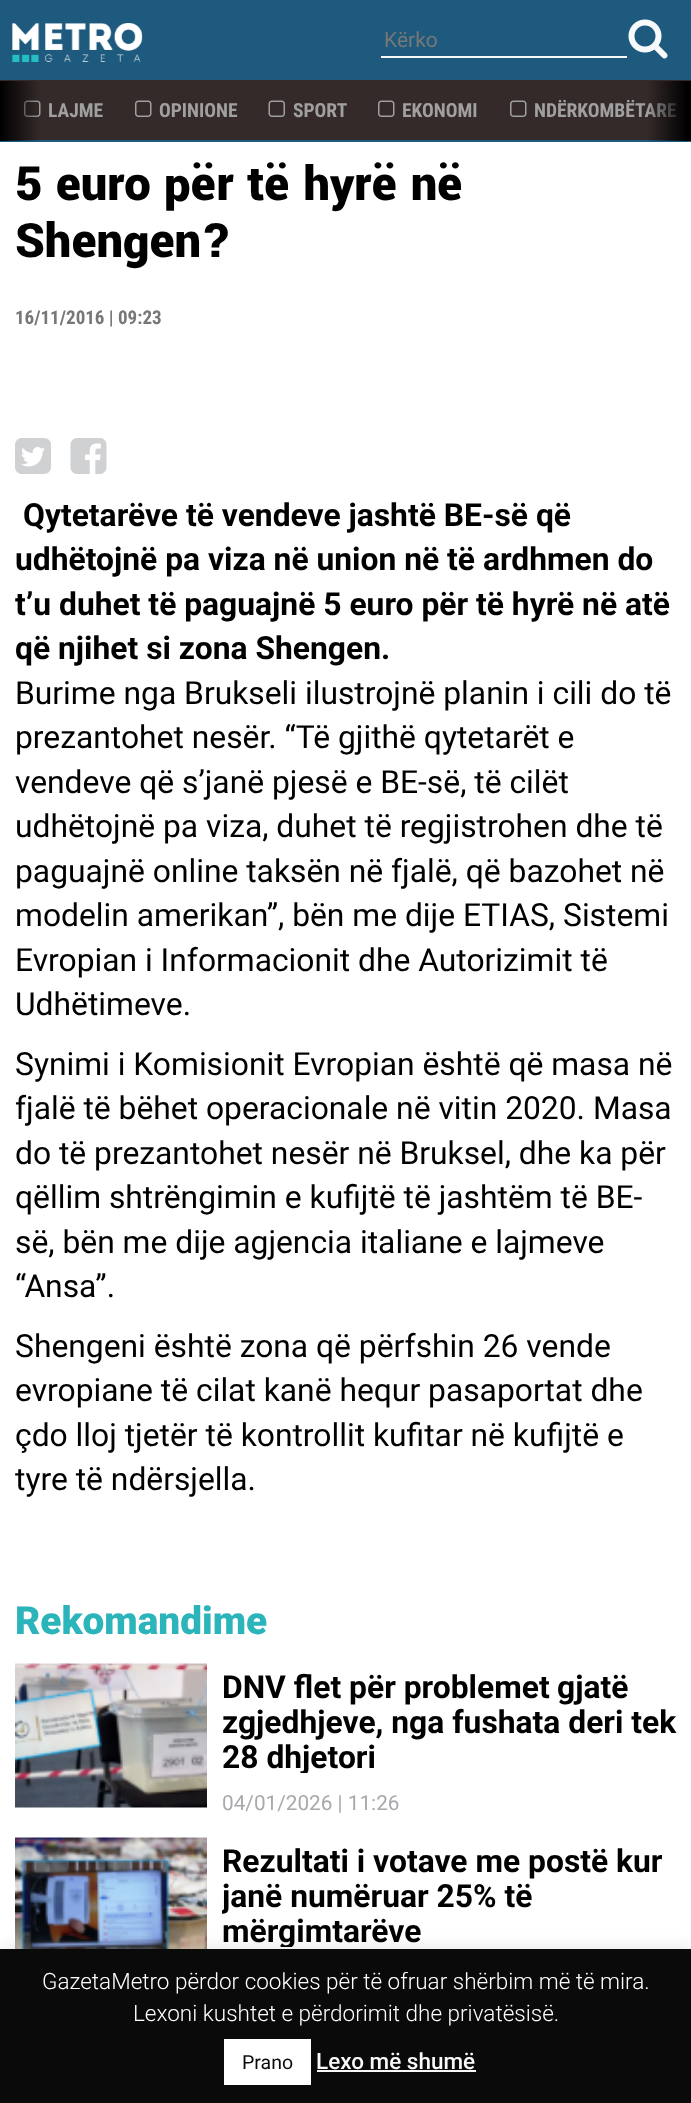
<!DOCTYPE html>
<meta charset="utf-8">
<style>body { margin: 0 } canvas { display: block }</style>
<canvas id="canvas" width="691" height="2103"></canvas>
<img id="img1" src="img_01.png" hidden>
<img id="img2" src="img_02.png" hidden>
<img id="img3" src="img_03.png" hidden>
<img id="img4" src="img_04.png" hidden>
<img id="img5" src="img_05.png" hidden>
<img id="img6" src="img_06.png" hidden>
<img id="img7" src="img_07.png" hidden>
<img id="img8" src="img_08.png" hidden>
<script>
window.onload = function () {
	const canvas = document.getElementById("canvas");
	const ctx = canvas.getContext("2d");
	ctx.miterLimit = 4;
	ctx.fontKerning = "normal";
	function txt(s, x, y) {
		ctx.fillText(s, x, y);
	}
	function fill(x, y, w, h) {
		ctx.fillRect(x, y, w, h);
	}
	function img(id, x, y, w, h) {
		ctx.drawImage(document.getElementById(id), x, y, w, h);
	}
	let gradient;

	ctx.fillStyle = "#FFFFFF";
	fill(0, 0, 691, 2103);
	ctx.fillStyle = "#1E5A7E";
	fill(0, 0, 691, 80);
	fill(0, 140, 691, 2);
	img("img1", 12, 23, 131, 39);
	ctx.fillStyle = "#F7F9FB";
	fill(381, 56, 246, 2);
	img("img2", 628, 19, 40, 40);
	ctx.fillStyle = "#352A2A";
	fill(0, 80, 691, 60);
	img("img3", 24, 100, 17, 17);
	gradient = ctx.createLinearGradient(45, 111, 0, 111);
	gradient.addColorStop(0.1, "rgba(0, 0, 0, 0)");
	gradient.addColorStop(1, "#000000");
	ctx.fillStyle = gradient;
	fill(0, 81, 40, 60);
	img("img3", 135, 100, 17, 17);
	img("img4", 268, 100, 17, 17);
	img("img3", 378, 100, 17, 17);
	img("img3", 510, 100, 17, 17);
	img("img5", 15, 438, 36, 36);
	img("img6", 70, 438, 37, 36);
	img("img7", 15, 1663, 192, 145);
	img("img8", 15, 1837, 192, 112);
	ctx.fillStyle = "rgba(172, 171, 171, 0.3)";
	ctx.filter = "blur(7.5px)";
	ctx.beginPath();
	ctx.rect(0, 1947, 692, 155);
	ctx.fill();
	ctx.filter = "none";
	ctx.fillStyle = "#0A0A0A";
	fill(0, 1949, 691, 154);
	ctx.fillStyle = "#FFFFFF";
	fill(224, 2039, 87, 46);
	ctx.fillStyle = "#F9F9F9";
	fill(317, 2070, 159, 2);
	ctx.font = "21px Roboto";
	ctx.fillStyle = "#777777";
	txt("Kërko", 384, 47);
	ctx.font = "bold 19.5px Roboto Condensed";
	ctx.fillStyle = "#A0A0A0";
	txt("LAJME", 48, 117);
	txt("OPINIONE", 159, 117);
	txt("SPORT", 293, 117);
	txt("EKONOMI", 402, 117);
	txt("NDËRKOMBËTARE", 534, 117);
	gradient = ctx.createLinearGradient(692, 111, 647, 111);
	gradient.addColorStop(0.1, "#000000");
	gradient.addColorStop(1, "rgba(0, 0, 0, 0)");
	ctx.fillStyle = gradient;
	fill(648, 81, 43, 60);
	ctx.font = "900 52.5px Yantramanav";
	ctx.fillStyle = "#000000";
	txt("5 euro për të hyrë në", 15, 200);
	txt("Shengen?", 15, 257);
	ctx.font = "bold 19px Roboto Condensed";
	ctx.fillStyle = "#777777";
	txt("16/11/2016 | 09:23", 15, 324);
	ctx.font = "bold 31.8px Roboto";
	ctx.fillStyle = "#000000";
	txt("Qytetarëve të vendeve jashtë BE-së që", 23, 526);
	txt("udhëtojnë pa viza në union në të ardhmen do", 15, 570);
	txt("t’u duhet të paguajnë 5 euro për të hyrë në atë", 15, 615);
	txt("që njihet si zona Shengen.", 15, 659);
	ctx.font = "31.8px Roboto";
	txt("Burime nga Brukseli ilustrojnë planin i cili do të", 15, 704);
	txt("prezantohet nesër. “Të gjithë qytetarët e", 15, 748);
	txt("vendeve që s’janë pjesë e BE-së, të cilët", 15, 793);
	txt("udhëtojnë pa viza, duhet të regjistrohen dhe të", 15, 837);
	txt("paguajnë online taksën në fjalë, që bazohet në", 15, 882);
	txt("modelin amerikan”, bën me dije ETIAS, Sistemi", 15, 926);
	txt("Evropian i Informacionit dhe Autorizimit të", 15, 971);
	txt("Udhëtimeve.", 15, 1015);
	txt("Synimi i Komisionit Evropian është që masa në", 15, 1075);
	txt("fjalë të bëhet operacionale në vitin 2020. Masa", 15, 1119);
	txt("do të prezantohet nesër në Bruksel, dhe ka për", 15, 1164);
	txt("qëllim shtrëngimin e kufijtë të jashtëm të BE-", 15, 1208);
	txt("së, bën me dije agjencia italiane e lajmeve", 15, 1253);
	txt("“Ansa”.", 15, 1297);
	txt("Shengeni është zona që përfshin 26 vende", 15, 1357);
	txt("evropiane të cilat kanë hequr pasaportat dhe", 15, 1401);
	txt("çdo lloj tjetër të kontrollit kufitar në kufijtë e", 15, 1446);
	txt("tyre të ndërsjella.", 15, 1490);
	ctx.font = "900 38.75px Roboto";
	ctx.fillStyle = "#2BB4BA";
	txt("Rekomandime", 15, 1634);
	ctx.font = "bold 31.8px Roboto";
	ctx.fillStyle = "#000000";
	txt("DNV flet për problemet", 222, 1698);
	txt("gjatë", 557, 1698);
	txt("zgjedhjeve, nga fushata deri tek", 222, 1733);
	ctx.save();
	ctx.beginPath();
	ctx.rect(222, 1670, 455, 103);
	ctx.clip();
	txt("28 dhjetori", 222, 1768);
	ctx.restore();
	ctx.font = "20.75px Roboto";
	ctx.fillStyle = "#A7A9AC";
	txt("04/01/2026 | 11:26", 222, 1810);
	ctx.font = "bold 31.8px Roboto";
	ctx.fillStyle = "#000000";
	txt("Rezultati i votave me postë kur", 222, 1872);
	ctx.save();
	ctx.beginPath();
	ctx.rect(222, 1844, 455, 103);
	ctx.clip();
	txt("janë numëruar 25% të", 222, 1907);
	txt("mërgimtarëve", 222, 1942);
	ctx.restore();
	ctx.font = "300 22.5px Roboto";
	ctx.fillStyle = "#FFFFFF";
	txt("GazetaMetro përdor cookies për të ofruar shërbim më të mira.", 42, 1989);
	txt("Lexoni kushtet e përdorimit dhe privatësisë.", 133, 2021);
	ctx.font = "19.5px Roboto";
	ctx.fillStyle = "#0A0A0A";
	txt("Prano", 242, 2069);
	ctx.font = "500 22.5px Roboto";
	ctx.fillStyle = "#F9F9F9";
	txt("Lexo më shumë", 316, 2069);
};
</script>
